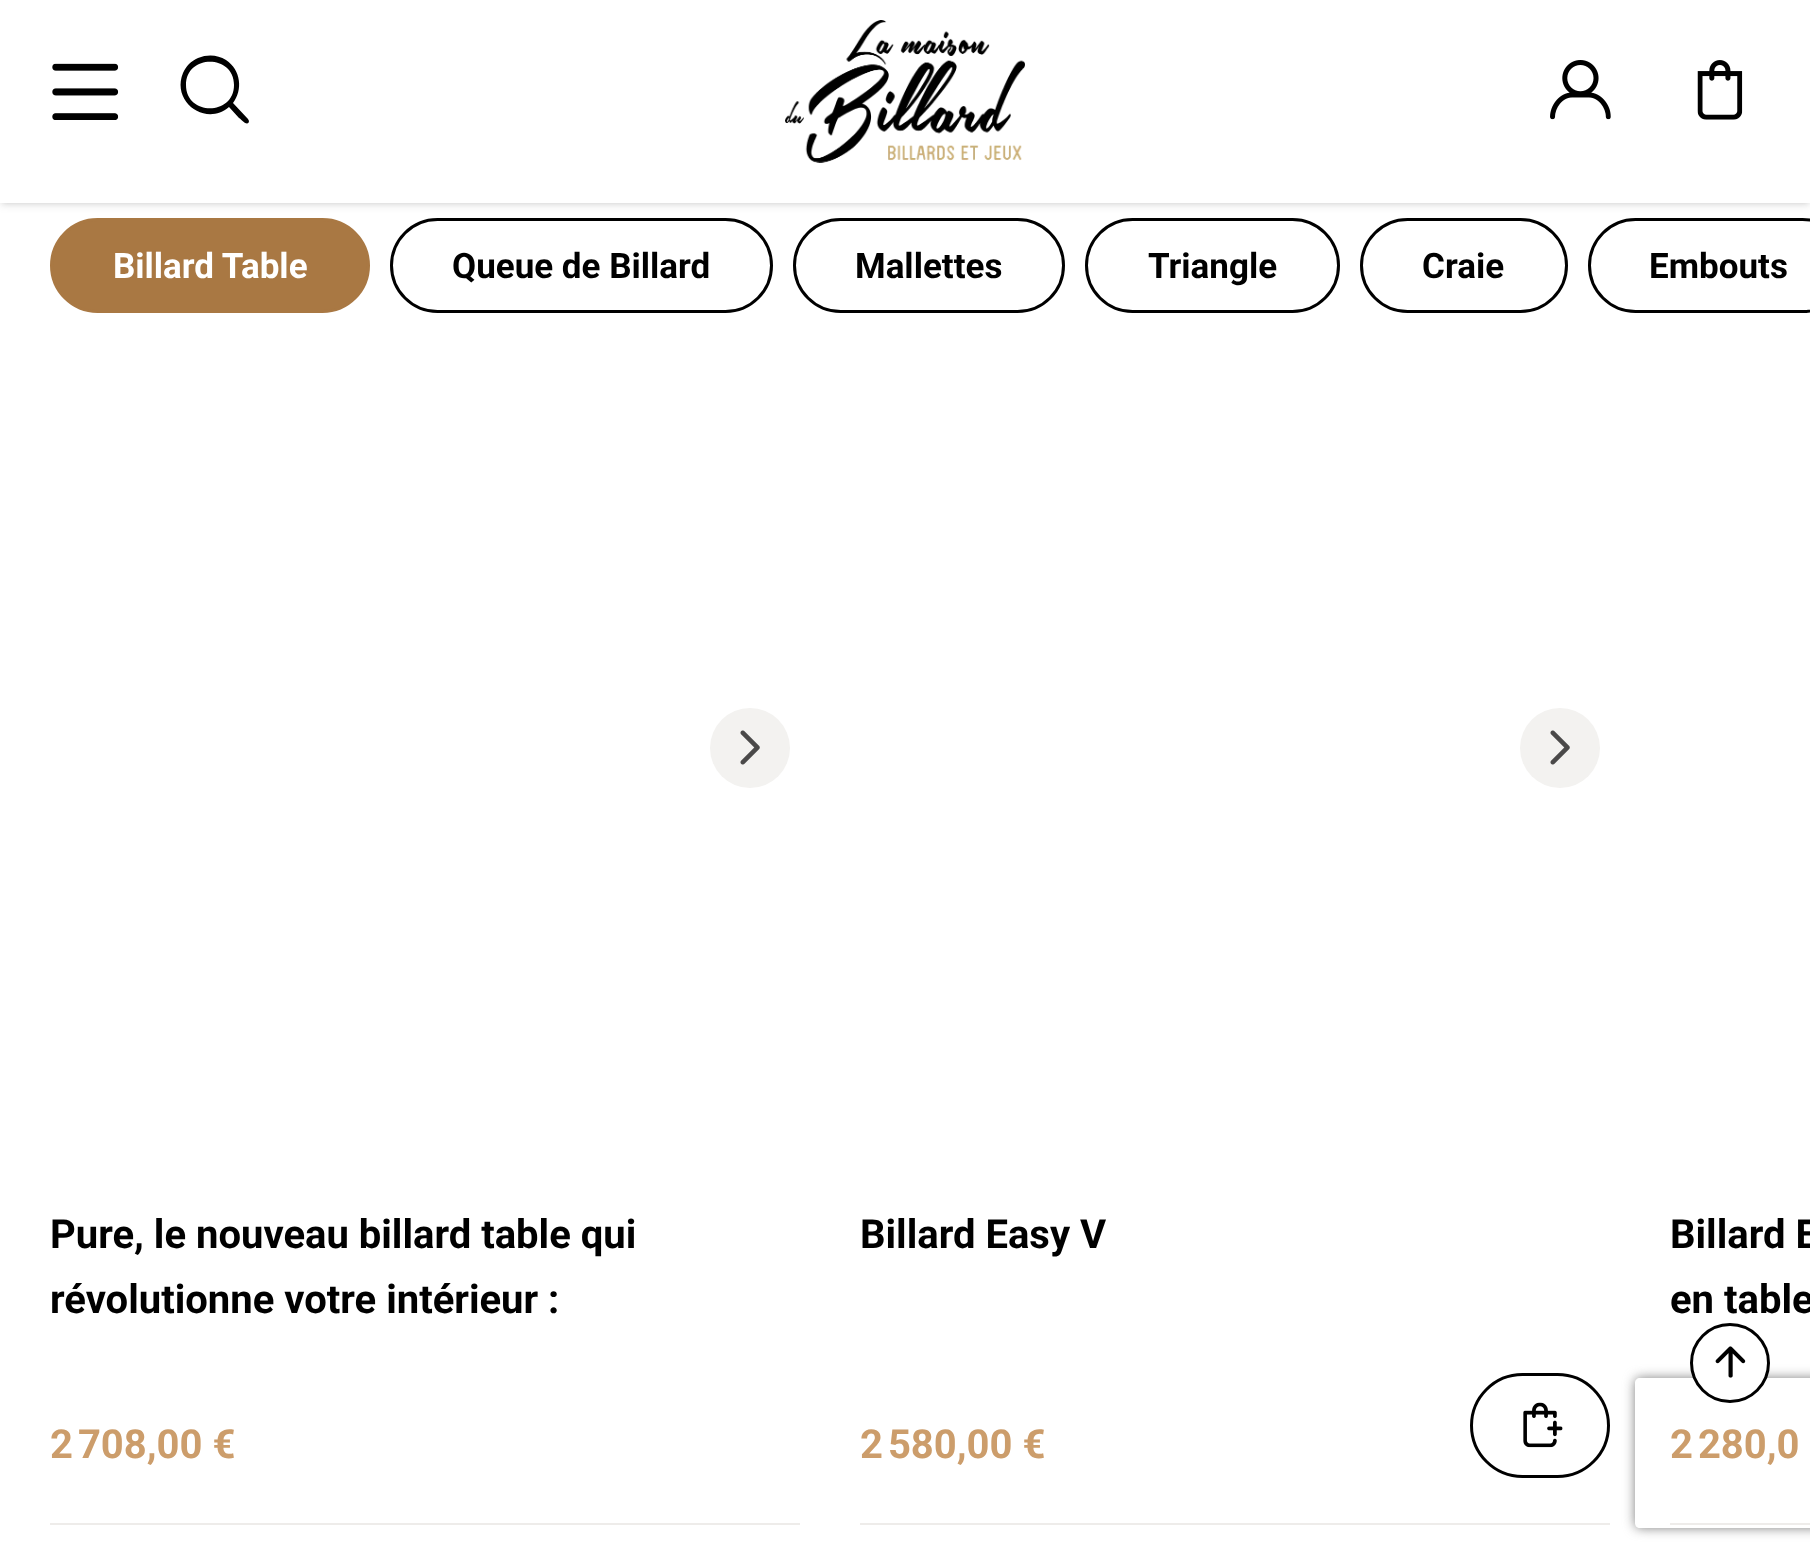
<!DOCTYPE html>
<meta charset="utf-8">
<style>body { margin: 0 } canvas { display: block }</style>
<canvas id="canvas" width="1810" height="1562"></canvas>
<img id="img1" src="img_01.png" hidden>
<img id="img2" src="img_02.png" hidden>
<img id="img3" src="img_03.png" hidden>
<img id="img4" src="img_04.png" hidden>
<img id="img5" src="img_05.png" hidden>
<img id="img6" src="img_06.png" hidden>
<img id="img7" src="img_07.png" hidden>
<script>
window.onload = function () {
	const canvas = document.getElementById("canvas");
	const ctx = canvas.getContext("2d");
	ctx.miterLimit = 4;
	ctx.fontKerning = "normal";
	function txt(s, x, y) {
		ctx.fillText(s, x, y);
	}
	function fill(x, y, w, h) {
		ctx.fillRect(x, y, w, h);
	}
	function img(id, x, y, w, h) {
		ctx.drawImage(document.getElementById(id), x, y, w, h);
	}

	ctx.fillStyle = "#FFFFFF";
	fill(0, 0, 1810, 1562);
	ctx.fillStyle = "rgba(0, 0, 0, 0.1)";
	ctx.filter = "blur(2.5px)";
	ctx.beginPath();
	ctx.rect(3, 5, 1805, 198);
	ctx.fill();
	ctx.filter = "none";
	ctx.filter = "blur(4px)";
	ctx.beginPath();
	ctx.rect(0, 3, 1810, 202);
	ctx.fill();
	ctx.filter = "none";
	ctx.fillStyle = "#FFFFFF";
	fill(0, 0, 1810, 203);
	img("img1", 52, 63, 67, 57);
	ctx.fillStyle = "#000000";
	ctx.beginPath();
	ctx.moveTo(248, 119);
	ctx.lineTo(233, 103);
	ctx.bezierCurveTo(243, 90, 241, 70, 226, 60);
	ctx.bezierCurveTo(218, 55, 208, 54, 198, 58);
	ctx.bezierCurveTo(191, 61, 186, 66, 183, 73);
	ctx.bezierCurveTo(171, 102, 206, 127, 229, 107);
	ctx.lineTo(239, 118);
	ctx.bezierCurveTo(240, 118, 248, 128, 249, 121);
	ctx.closePath();
	ctx.moveTo(186, 85);
	ctx.bezierCurveTo(186, 54, 234, 54, 234, 85);
	ctx.bezierCurveTo(234, 116, 186, 116, 186, 85);
	ctx.fill();
	img("img2", 785, 20, 240, 143);
	img("img3", 1550, 60, 61, 60);
	img("img4", 1697, 60, 46, 60);
	ctx.fillStyle = "#A97843";
	ctx.beginPath();
	ctx.roundRect(51.5, 219.5, 317, 92, 46);
	ctx.fill();
	ctx.strokeStyle = "#A97843";
	ctx.lineWidth = 3;
	ctx.stroke();
	ctx.beginPath();
	ctx.roundRect(391.5, 219.5, 380, 92, 46);
	ctx.strokeStyle = "#000000";
	ctx.stroke();
	ctx.beginPath();
	ctx.roundRect(794.5, 219.5, 269, 92, 46);
	ctx.stroke();
	ctx.beginPath();
	ctx.roundRect(1086.5, 219.5, 252, 92, 46);
	ctx.stroke();
	ctx.beginPath();
	ctx.roundRect(1361.5, 219.5, 205, 92, 46);
	ctx.stroke();
	ctx.beginPath();
	ctx.roundRect(1589.5, 219.5, 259, 92, 46);
	ctx.stroke();
	ctx.fillStyle = "#EEECEA";
	fill(50, 1523, 750, 2);
	ctx.fillStyle = "#F3F2F0";
	ctx.beginPath();
	ctx.arc(750, 748, 40, 0, Math.PI * 2);
	ctx.fill();
	img("img5", 740, 730, 20, 35);
	ctx.fillStyle = "#EEECEA";
	fill(860, 1523, 750, 2);
	ctx.fillStyle = "#F3F2F0";
	ctx.beginPath();
	ctx.arc(1560, 748, 40, 0, Math.PI * 2);
	ctx.fill();
	img("img5", 1550, 730, 20, 35);
	ctx.beginPath();
	ctx.roundRect(1471.5, 1374.5, 137, 102, 51);
	ctx.stroke();
	img("img6", 1523, 1402, 40, 46);
	ctx.fillStyle = "#EEECEA";
	fill(1670, 1523, 140, 2);
	ctx.save();
	ctx.beginPath();
	ctx.moveTo(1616, 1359);
	ctx.lineTo(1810, 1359);
	ctx.lineTo(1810, 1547);
	ctx.lineTo(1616, 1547);
	ctx.closePath();
	ctx.moveTo(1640, 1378);
	ctx.lineTo(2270, 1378);
	ctx.bezierCurveTo(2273, 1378, 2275, 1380, 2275, 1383);
	ctx.lineTo(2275, 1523);
	ctx.bezierCurveTo(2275, 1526, 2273, 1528, 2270, 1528);
	ctx.lineTo(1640, 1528);
	ctx.bezierCurveTo(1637, 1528, 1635, 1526, 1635, 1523);
	ctx.lineTo(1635, 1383);
	ctx.bezierCurveTo(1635, 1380, 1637, 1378, 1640, 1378);
	ctx.closePath();
	ctx.clip("evenodd");
	ctx.fillStyle = "#808080";
	ctx.filter = "blur(6px)";
	ctx.beginPath();
	ctx.roundRect(1635, 1378, 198, 150, 5);
	ctx.fill();
	ctx.filter = "none";
	ctx.restore();
	ctx.fillStyle = "#FFFFFF";
	ctx.beginPath();
	ctx.arc(1730, 1363, 38.5, 0, Math.PI * 2);
	ctx.fill();
	ctx.stroke();
	img("img7", 1715, 1346, 31, 32);
	ctx.font = "bold 35px Roboto";
	txt("Billard Table", 113, 278);
	ctx.fillStyle = "#000000";
	txt("Queue de Billard", 452, 278);
	txt("Mallettes", 855, 278);
	txt("Triangle", 1148, 278);
	txt("Craie", 1422, 278);
	txt("Embouts", 1649, 278);
	ctx.font = "bold 40px Roboto";
	txt("Pure, le nouveau billard table qui", 50, 1248);
	txt("révolutionne votre intérieur :", 50, 1313);
	ctx.fillStyle = "#CC9D6B";
	txt("2 708,00 €", 50, 1458);
	ctx.fillStyle = "#000000";
	txt("Billard Easy V", 860, 1248);
	ctx.fillStyle = "#CC9D6B";
	txt("2 580,00 €", 860, 1458);
	ctx.fillStyle = "#000000";
	txt("Billard E", 1670, 1248);
	txt("en table", 1670, 1313);
	ctx.fillStyle = "#CC9D6B";
	txt("2 280,0", 1670, 1458);
};
</script>
